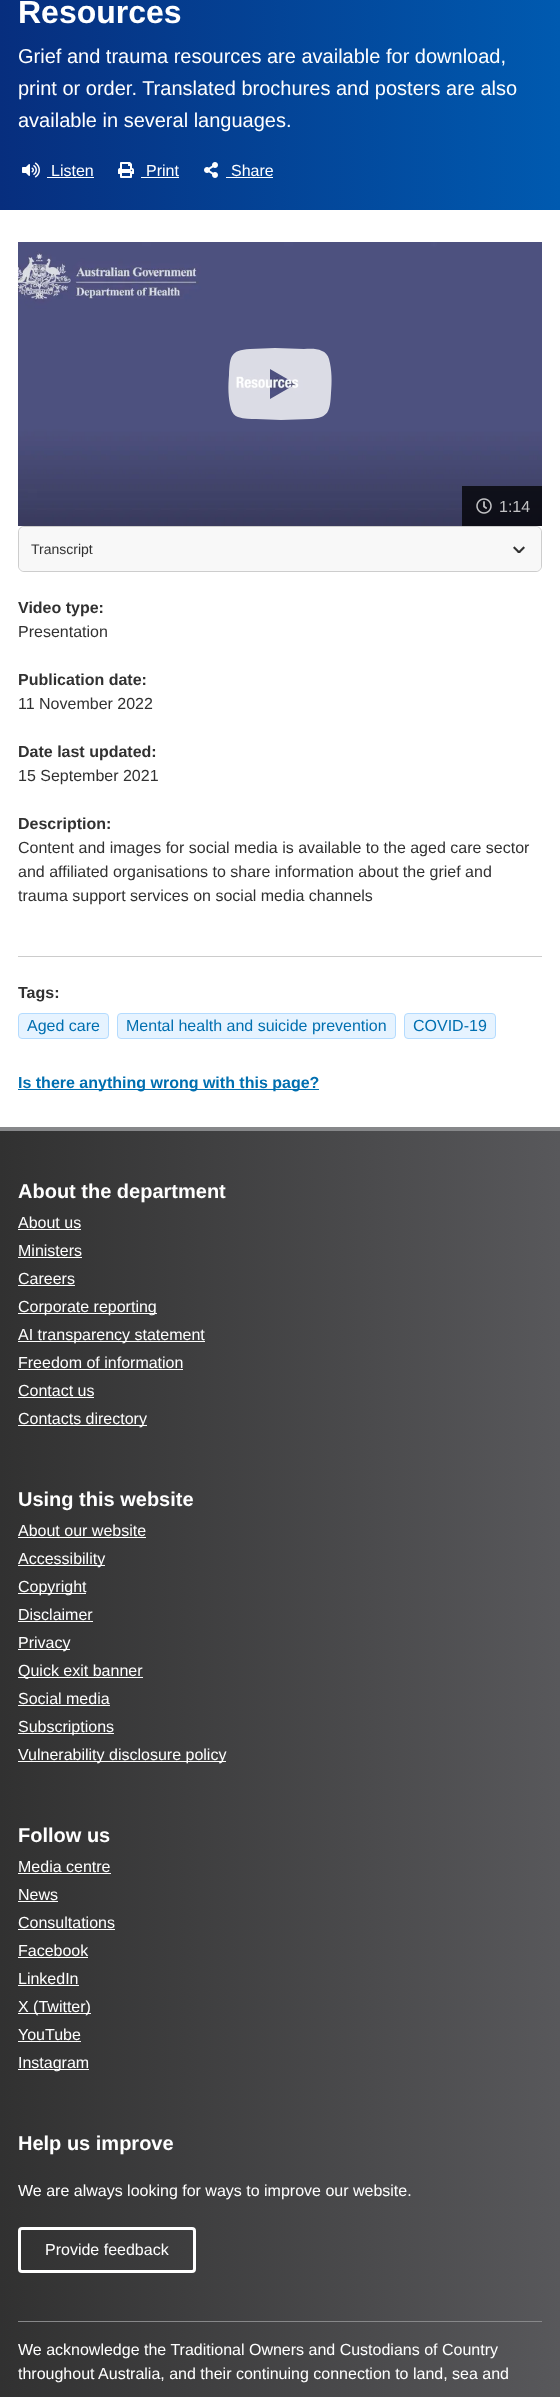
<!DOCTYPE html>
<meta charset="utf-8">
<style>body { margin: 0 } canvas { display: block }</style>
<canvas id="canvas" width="560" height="2397"></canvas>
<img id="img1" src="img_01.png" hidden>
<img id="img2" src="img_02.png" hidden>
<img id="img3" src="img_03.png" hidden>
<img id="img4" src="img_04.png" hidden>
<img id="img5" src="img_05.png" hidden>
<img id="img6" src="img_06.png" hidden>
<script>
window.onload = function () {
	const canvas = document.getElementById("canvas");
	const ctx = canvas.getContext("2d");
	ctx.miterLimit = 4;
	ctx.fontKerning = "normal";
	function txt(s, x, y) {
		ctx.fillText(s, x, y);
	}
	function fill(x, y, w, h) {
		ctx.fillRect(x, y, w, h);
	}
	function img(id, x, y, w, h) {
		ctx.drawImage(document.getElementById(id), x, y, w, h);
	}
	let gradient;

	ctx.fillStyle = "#FFFFFF";
	fill(0, 0, 560, 2397);
	gradient = ctx.createLinearGradient(0, 35, 560, 35);
	gradient.addColorStop(0, "#072E7E");
	gradient.addColorStop(1, "#005AB0");
	ctx.fillStyle = gradient;
	fill(0, 0, 560, 210);
	img("img1", 22, 162, 18, 16);
	ctx.fillStyle = "#FFFFFF";
	fill(47, 177, 47, 1);
	img("img2", 118, 162, 16, 16);
	fill(141, 177, 38, 1);
	img("img3", 204, 162, 14, 16);
	fill(226, 177, 47, 1);
	img("img4", 18, 242, 524, 284);
	ctx.fillStyle = "rgba(255, 255, 255, 0.8)";
	ctx.beginPath();
	ctx.moveTo(329, 359);
	ctx.bezierCurveTo(328, 355, 325, 352, 322, 351);
	ctx.bezierCurveTo(316, 348, 309, 349, 304, 349);
	ctx.lineTo(275, 348);
	ctx.lineTo(250, 349);
	ctx.bezierCurveTo(230, 350, 230, 357, 229, 375);
	ctx.bezierCurveTo(228, 386, 228, 398, 231, 409);
	ctx.bezierCurveTo(232, 413, 235, 416, 238, 417);
	ctx.bezierCurveTo(244, 419, 251, 419, 256, 419);
	ctx.lineTo(281, 420);
	ctx.lineTo(310, 419);
	ctx.bezierCurveTo(329, 418, 330, 411, 331, 393);
	ctx.bezierCurveTo(332, 382, 332, 370, 329, 359);
	ctx.closePath();
	ctx.moveTo(270, 399);
	ctx.lineTo(270, 369);
	ctx.lineTo(296, 384);
	ctx.closePath();
	ctx.fill();
	ctx.fillStyle = "rgba(0, 0, 0, 0.75)";
	fill(462, 486, 80, 40);
	img("img5", 476, 498, 16, 16);
	ctx.beginPath();
	ctx.roundRect(18.5, 526.5, 523, 45, 5.5);
	ctx.strokeStyle = "#CDCDCD";
	ctx.stroke();
	ctx.save();
	ctx.beginPath();
	ctx.roundRect(19, 527, 522, 44, 5);
	ctx.clip();
	ctx.fillStyle = "#F8F8F8";
	ctx.beginPath();
	ctx.roundRect(19, 527, 522, 44, [6, 6, 5, 5]);
	ctx.fill();
	ctx.restore();
	img("img6", 513, 546, 12, 7);
	ctx.fillStyle = "#CCCCCC";
	fill(18, 956, 524, 1);
	ctx.fillStyle = "#E6F3FF";
	ctx.beginPath();
	ctx.roundRect(18.5, 1013.5, 90, 25, 3.5);
	ctx.fill();
	ctx.strokeStyle = "#B3DBFF";
	ctx.stroke();
	ctx.beginPath();
	ctx.roundRect(117.5, 1013.5, 278, 25, 3.5);
	ctx.fill();
	ctx.stroke();
	ctx.beginPath();
	ctx.roundRect(404.5, 1013.5, 91, 25, 3.5);
	ctx.fill();
	ctx.stroke();
	ctx.fillStyle = "#006FB0";
	fill(18, 1089, 301, 1);
	gradient = ctx.createLinearGradient(0, 1843, 560, 1843);
	gradient.addColorStop(0, "#313131");
	gradient.addColorStop(1, "#58585B");
	ctx.fillStyle = gradient;
	fill(0, 1131, 560, 1266);
	ctx.fillStyle = "#87888A";
	fill(0, 1127, 560, 4);
	ctx.fillStyle = "#FFFFFF";
	fill(18, 1229, 63, 1);
	fill(18, 1257, 64, 1);
	fill(18, 1285, 57, 1);
	fill(18, 1313, 139, 1);
	fill(18, 1341, 187, 1);
	fill(18, 1369, 165, 1);
	fill(18, 1397, 76, 1);
	fill(18, 1425, 129, 1);
	fill(18, 1537, 128, 1);
	fill(18, 1565, 87, 1);
	fill(18, 1593, 68, 1);
	fill(18, 1621, 75, 1);
	fill(18, 1649, 52, 1);
	fill(18, 1677, 125, 1);
	fill(18, 1705, 92, 1);
	fill(18, 1733, 96, 1);
	fill(18, 1761, 208, 1);
	fill(18, 1873, 93, 1);
	fill(18, 1901, 40, 1);
	fill(18, 1929, 97, 1);
	fill(18, 1957, 70, 1);
	fill(18, 1985, 61, 1);
	fill(18, 2013, 73, 1);
	fill(18, 2041, 63, 1);
	fill(18, 2069, 71, 1);
	ctx.beginPath();
	ctx.roundRect(19.5, 2228.5, 175, 43, 2.5);
	ctx.strokeStyle = "#FFFFFF";
	ctx.lineWidth = 3;
	ctx.stroke();
	ctx.fillStyle = "#87888A";
	fill(18, 2321, 524, 1);
	ctx.font = "bold 32px Liberation Sans";
	ctx.fillStyle = "#FFFFFF";
	txt("Resources", 18, 23);
	ctx.font = "20px Liberation Sans";
	txt("Grief and trauma resources are available for download,", 18, 63);
	txt("print or order. Translated brochures and posters are also", 18, 95);
	txt("available in several languages.", 18, 127);
	ctx.font = "16px Liberation Sans";
	txt("Listen", 51, 176);
	txt("Print", 146, 176);
	txt("Share", 231, 176);
	ctx.fillStyle = "#C3C3C5";
	txt("1:14", 499, 512);
	ctx.font = "14px Liberation Sans";
	ctx.fillStyle = "#313131";
	txt("Transcript", 31, 554);
	ctx.font = "bold 16px Liberation Sans";
	txt("Video type:", 18, 613);
	ctx.font = "16px Liberation Sans";
	txt("Presentation", 18, 637);
	ctx.font = "bold 16px Liberation Sans";
	txt("Publication date:", 18, 685);
	ctx.font = "16px Liberation Sans";
	txt("11 November 2022", 18, 709);
	ctx.font = "bold 16px Liberation Sans";
	txt("Date last updated:", 18, 757);
	ctx.font = "16px Liberation Sans";
	txt("15 September 2021", 18, 781);
	ctx.font = "bold 16px Liberation Sans";
	txt("Description:", 18, 829);
	ctx.font = "16px Liberation Sans";
	txt("Content and images for social media is available to the aged care sector", 18, 853);
	txt("and affiliated organisations to share information about the grief and", 18, 877);
	txt("trauma support services on social media channels", 18, 901);
	ctx.font = "bold 16px Liberation Sans";
	txt("Tags:", 18, 998);
	ctx.font = "16px Liberation Sans";
	ctx.fillStyle = "#006FB0";
	txt("Aged care", 27, 1031);
	txt("Mental health and suicide prevention", 126, 1031);
	txt("COVID-19", 413, 1031);
	ctx.font = "bold 16px Liberation Sans";
	txt("Is there anything wrong with this page?", 18, 1088);
	ctx.font = "bold 20px Liberation Sans";
	ctx.fillStyle = "#FFFFFF";
	txt("About the department", 18, 1198);
	ctx.font = "16px Liberation Sans";
	txt("About us", 18, 1228);
	txt("Ministers", 18, 1256);
	txt("Careers", 18, 1284);
	txt("Corporate reporting", 18, 1312);
	txt("AI transparency statement", 18, 1340);
	txt("Freedom of information", 18, 1368);
	txt("Contact us", 18, 1396);
	txt("Contacts directory", 18, 1424);
	ctx.font = "bold 20px Liberation Sans";
	txt("Using this website", 18, 1506);
	ctx.font = "16px Liberation Sans";
	txt("About our website", 18, 1536);
	txt("Accessibility", 18, 1564);
	txt("Copyright", 18, 1592);
	txt("Disclaimer", 18, 1620);
	txt("Privacy", 18, 1648);
	txt("Quick exit banner", 18, 1676);
	txt("Social media", 18, 1704);
	txt("Subscriptions", 18, 1732);
	txt("Vulnerability disclosure policy", 18, 1760);
	ctx.font = "bold 20px Liberation Sans";
	txt("Follow us", 18, 1842);
	ctx.font = "16px Liberation Sans";
	txt("Media centre", 18, 1872);
	txt("News", 18, 1900);
	txt("Consultations", 18, 1928);
	txt("Facebook", 18, 1956);
	txt("LinkedIn", 18, 1984);
	txt("X (Twitter)", 18, 2012);
	txt("YouTube", 18, 2040);
	txt("Instagram", 18, 2068);
	ctx.font = "bold 20px Liberation Sans";
	txt("Help us improve", 18, 2150);
	ctx.font = "16px Liberation Sans";
	txt("We are always looking for ways to improve our website.", 18, 2196);
	txt("Provide feedback", 45, 2255);
	txt("We acknowledge the Traditional Owners and Custodians of Country", 18, 2355);
	txt("throughout Australia, and their continuing connection to land, sea and", 18, 2379);
};
</script>
